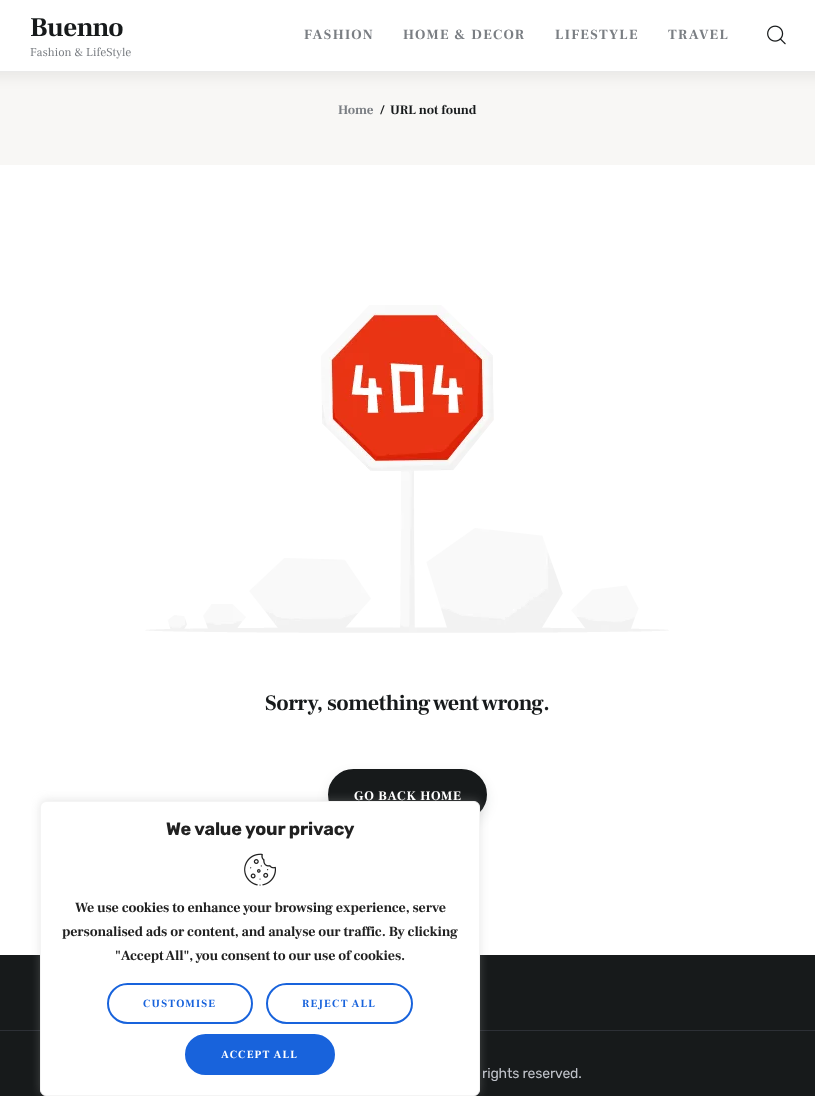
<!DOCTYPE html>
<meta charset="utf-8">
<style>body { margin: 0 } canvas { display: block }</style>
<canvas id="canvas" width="815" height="1096"></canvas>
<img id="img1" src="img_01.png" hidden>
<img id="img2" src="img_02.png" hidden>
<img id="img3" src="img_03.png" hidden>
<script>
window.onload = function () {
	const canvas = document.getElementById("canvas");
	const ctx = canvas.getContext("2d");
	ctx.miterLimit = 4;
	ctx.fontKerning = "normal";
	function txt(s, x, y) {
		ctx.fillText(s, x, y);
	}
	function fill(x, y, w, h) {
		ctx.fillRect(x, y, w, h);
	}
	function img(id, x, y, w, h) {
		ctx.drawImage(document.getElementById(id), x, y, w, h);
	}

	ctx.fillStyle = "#FFFFFF";
	fill(0, 0, 815, 1096);
	ctx.fillStyle = "#F8F7F5";
	fill(0, 72, 815, 93);
	ctx.fillStyle = "rgba(0, 0, 0, 0.08)";
	ctx.filter = "blur(8px)";
	ctx.beginPath();
	ctx.rect(-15, 3, 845, 72);
	ctx.fill();
	ctx.filter = "none";
	ctx.fillStyle = "#FFFFFF";
	fill(0, 0, 815, 71);
	ctx.fillStyle = "#EAEAEA";
	fill(0, 71, 815, 1);
	img("img1", 767, 25, 19, 20);
	img("img2", 145, 305, 524, 328);
	ctx.fillStyle = "rgba(23, 26, 27, 0.1)";
	ctx.filter = "blur(6px)";
	ctx.beginPath();
	ctx.roundRect(328, 774, 159, 51, 25.5);
	ctx.fill();
	ctx.filter = "none";
	ctx.fillStyle = "#171A1B";
	ctx.beginPath();
	ctx.roundRect(329, 770, 157, 49, 24.5);
	ctx.fill();
	ctx.strokeStyle = "#171A1B";
	ctx.lineWidth = 2;
	ctx.stroke();
	fill(0, 955, 815, 141);
	ctx.fillStyle = "#2D3036";
	fill(0, 1030, 815, 1);
	ctx.fillStyle = "rgba(172, 171, 171, 0.3)";
	ctx.filter = "blur(5px)";
	ctx.beginPath();
	ctx.roundRect(40, 800, 440, 295, 6);
	ctx.fill();
	ctx.filter = "none";
	ctx.fillStyle = "#FFFFFF";
	ctx.beginPath();
	ctx.roundRect(40.5, 801.5, 439, 294, 5.5);
	ctx.fill();
	ctx.strokeStyle = "#F4F4F4";
	ctx.lineWidth = 1;
	ctx.stroke();
	img("img3", 244, 853, 32, 33);
	ctx.beginPath();
	ctx.roundRect(108, 984, 144, 39, 19.5);
	ctx.strokeStyle = "#1863DC";
	ctx.lineWidth = 2;
	ctx.stroke();
	ctx.beginPath();
	ctx.roundRect(267, 984, 145, 39, 19.5);
	ctx.stroke();
	ctx.fillStyle = "#1863DC";
	ctx.beginPath();
	ctx.roundRect(186, 1035, 148, 39, 19.5);
	ctx.fill();
	ctx.stroke();
	ctx.letterSpacing = "-0.5px";
	ctx.font = "bold 27px Frank Ruhl Libre";
	ctx.fillStyle = "#171A1B";
	txt("Buenno", 30, 36);
	ctx.letterSpacing = "0px";
	ctx.font = "12px Frank Ruhl Libre";
	ctx.fillStyle = "#7A7E83";
	txt("Fashion & LifeStyle", 30, 56);
	ctx.letterSpacing = "1.4px";
	ctx.font = "bold 14px Frank Ruhl Libre";
	txt("FASHION", 304, 39);
	txt("HOME & DECOR", 403, 39);
	txt("LIFESTYLE", 555, 39);
	txt("TRAVEL", 668, 39);
	ctx.letterSpacing = "0px";
	ctx.font = "bold 13px Frank Ruhl Libre";
	txt("Home", 338, 114);
	ctx.fillStyle = "#171A1B";
	txt("/", 380, 114);
	txt("URL not found", 390, 114);
	ctx.letterSpacing = "-0.45px";
	ctx.font = "bold 22px Frank Ruhl Libre";
	txt("Sorry, something went wrong.", 265, 710);
	ctx.letterSpacing = "0.75px";
	ctx.font = "bold 13px Frank Ruhl Libre";
	ctx.fillStyle = "#FFFFFF";
	txt("GO BACK HOME", 354, 800);
	ctx.letterSpacing = "-0.15px";
	ctx.font = "14px Rubik";
	ctx.fillStyle = "#BFC2C9";
	txt("rights reserved.", 482, 1078);
	ctx.font = "bold 18px Rubik";
	ctx.fillStyle = "#212121";
	txt("We value your privacy", 166, 835);
	ctx.font = "bold 14px Frank Ruhl Libre";
	txt("We use cookies to enhance your browsing experience, serve", 75, 912);
	txt("personalised ads or content, and analyse our traffic. By clicking", 62, 936);
	txt("\"Accept All\", you consent to our use of cookies.", 115, 960);
	ctx.letterSpacing = "1.25px";
	ctx.font = "bold 11px Frank Ruhl Libre";
	ctx.fillStyle = "#1863DC";
	txt("CUSTOMISE", 143, 1007);
	txt("REJECT ALL", 302, 1007);
	ctx.fillStyle = "#FFFFFF";
	txt("ACCEPT ALL", 221, 1058);
};
</script>
